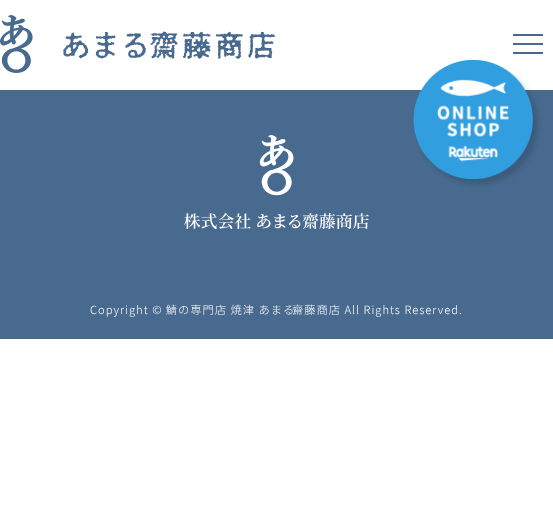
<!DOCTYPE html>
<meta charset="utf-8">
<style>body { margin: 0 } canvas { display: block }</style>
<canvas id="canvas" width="553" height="517"></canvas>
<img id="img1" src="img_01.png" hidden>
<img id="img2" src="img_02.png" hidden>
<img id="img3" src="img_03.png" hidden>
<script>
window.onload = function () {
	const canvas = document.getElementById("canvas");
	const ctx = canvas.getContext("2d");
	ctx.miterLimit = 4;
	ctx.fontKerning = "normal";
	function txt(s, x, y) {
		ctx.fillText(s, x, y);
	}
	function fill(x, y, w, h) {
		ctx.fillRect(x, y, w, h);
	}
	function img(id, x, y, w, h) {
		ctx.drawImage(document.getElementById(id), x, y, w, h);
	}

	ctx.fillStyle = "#FFFFFF";
	fill(0, 0, 553, 517);
	img("img1", 0, 15, 275, 58);
	ctx.fillStyle = "#486A8F";
	fill(513, 34, 30, 2);
	fill(513, 43, 30, 2);
	fill(513, 52, 30, 2);
	fill(0, 90, 553, 249);
	ctx.fillStyle = "rgba(0, 0, 0, 0.15)";
	ctx.filter = "blur(2.5px)";
	ctx.beginPath();
	ctx.roundRect(418, 65, 120, 119, 59.5);
	ctx.fill();
	ctx.filter = "none";
	img("img2", 413, 60, 120, 119);
	img("img3", 184, 135, 185, 94);
	ctx.letterSpacing = "1px";
	ctx.font = "300 11.25px Noto Sans JP";
	ctx.fillStyle = "#FFFFFF";
	txt("Copyright © 鯖の専門店 焼津 あまる", 90, 314);
	txt("齋藤商店 All Rights Reserved.", 292, 314);
};
</script>
